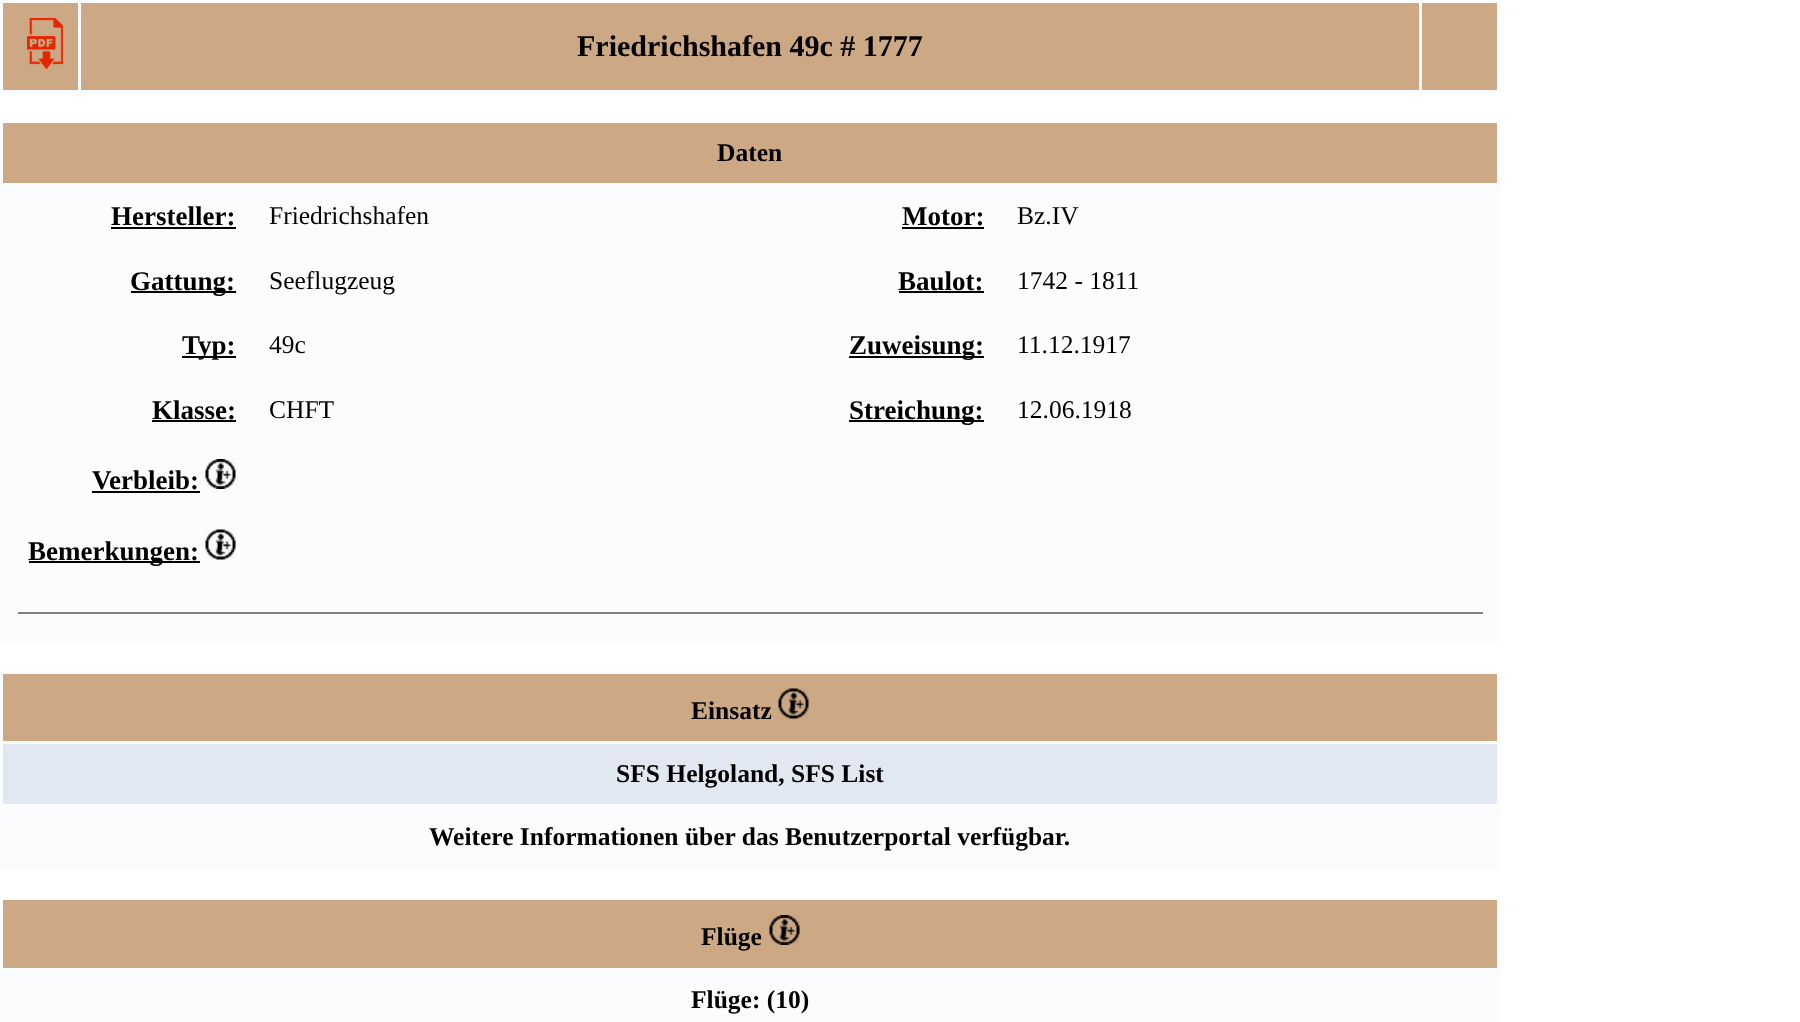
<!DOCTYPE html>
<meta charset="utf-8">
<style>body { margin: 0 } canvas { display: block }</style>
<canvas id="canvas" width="1800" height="1022"></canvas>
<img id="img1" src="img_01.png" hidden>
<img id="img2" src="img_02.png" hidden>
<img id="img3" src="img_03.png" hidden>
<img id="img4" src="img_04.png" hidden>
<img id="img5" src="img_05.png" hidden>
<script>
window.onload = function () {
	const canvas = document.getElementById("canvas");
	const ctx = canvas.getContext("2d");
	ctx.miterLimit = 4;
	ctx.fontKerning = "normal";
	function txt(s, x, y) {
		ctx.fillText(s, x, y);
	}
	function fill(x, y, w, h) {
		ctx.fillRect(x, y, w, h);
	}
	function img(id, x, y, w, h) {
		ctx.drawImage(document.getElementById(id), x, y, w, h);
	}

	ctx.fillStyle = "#FFFFFF";
	fill(0, 0, 1800, 1022);
	ctx.fillStyle = "#FAFCFD";
	fill(0, 0, 1500, 93);
	ctx.fillStyle = "#CCA884";
	fill(3, 3, 75, 87);
	img("img1", 27, 18, 36, 51);
	fill(81, 3, 1338, 87);
	fill(1422, 3, 75, 87);
	ctx.fillStyle = "#FAFCFD";
	fill(0, 120, 1500, 524);
	ctx.fillStyle = "#CCA884";
	fill(3, 123, 1494, 60);
	ctx.fillStyle = "#000000";
	fill(111, 227, 125, 2);
	fill(902, 227, 82, 2);
	fill(131, 291, 105, 2);
	fill(899, 291, 85, 2);
	fill(182, 356, 54, 2);
	fill(849, 356, 135, 2);
	fill(152, 420, 84, 2);
	fill(849, 420, 135, 2);
	fill(92, 491, 108, 2);
	img("img2", 205, 459, 31, 30);
	fill(29, 561, 171, 2);
	img("img3", 205, 529, 31, 31);
	ctx.fillStyle = "#808080";
	fill(18, 612, 1465, 2);
	ctx.fillStyle = "#FAFCFD";
	fill(0, 671, 1500, 199);
	ctx.fillStyle = "#CCA884";
	fill(3, 674, 1494, 67);
	img("img4", 778, 688, 31, 31);
	ctx.fillStyle = "#E1E8F1";
	fill(3, 744, 1494, 60);
	ctx.fillStyle = "#FAFCFD";
	fill(0, 897, 1500, 125);
	ctx.fillStyle = "#CCA884";
	fill(3, 900, 1494, 68);
	img("img5", 769, 915, 31, 30);
	ctx.font = "bold 30px Liberation Serif";
	ctx.fillStyle = "#000000";
	txt("Friedrichshafen 49c # 1777", 577, 56);
	ctx.font = "bold 25.5px Liberation Serif";
	txt("Daten", 717, 161);
	ctx.font = "bold 27px Liberation Serif";
	txt("Hersteller:", 111, 225);
	ctx.font = "25.5px Liberation Serif";
	txt("Friedrichshafen", 269, 224);
	ctx.font = "bold 27px Liberation Serif";
	txt("Motor:", 902, 225);
	ctx.font = "25.5px Liberation Serif";
	txt("Bz.IV", 1017, 224);
	ctx.font = "bold 27px Liberation Serif";
	txt("Gattung:", 130, 290);
	ctx.font = "25.5px Liberation Serif";
	txt("Seeflugzeug", 269, 289);
	ctx.font = "bold 27px Liberation Serif";
	txt("Baulot:", 898, 290);
	ctx.font = "25.5px Liberation Serif";
	txt("1742 - 1811", 1017, 289);
	ctx.font = "bold 27px Liberation Serif";
	txt("Typ:", 182, 354);
	ctx.font = "25.5px Liberation Serif";
	txt("49c", 269, 353);
	ctx.font = "bold 27px Liberation Serif";
	txt("Zuweisung:", 849, 354);
	ctx.font = "25.5px Liberation Serif";
	txt("11.12.1917", 1017, 353);
	ctx.font = "bold 27px Liberation Serif";
	txt("Klasse:", 152, 419);
	ctx.font = "25.5px Liberation Serif";
	txt("CHFT", 269, 418);
	ctx.font = "bold 27px Liberation Serif";
	txt("Streichung:", 849, 419);
	ctx.font = "25.5px Liberation Serif";
	txt("12.06.1918", 1017, 418);
	ctx.font = "bold 27px Liberation Serif";
	txt("Verbleib:", 92, 489);
	txt("Bemerkungen:", 28, 560);
	ctx.font = "bold 25.5px Liberation Serif";
	txt("Einsatz", 691, 719);
	txt("SFS Helgoland, SFS List", 616, 782);
	txt("Weitere Informationen über das Benutzerportal verfügbar.", 429, 845);
	txt("Flüge", 701, 945);
	txt("Flüge: (10)", 691, 1008);
};
</script>
